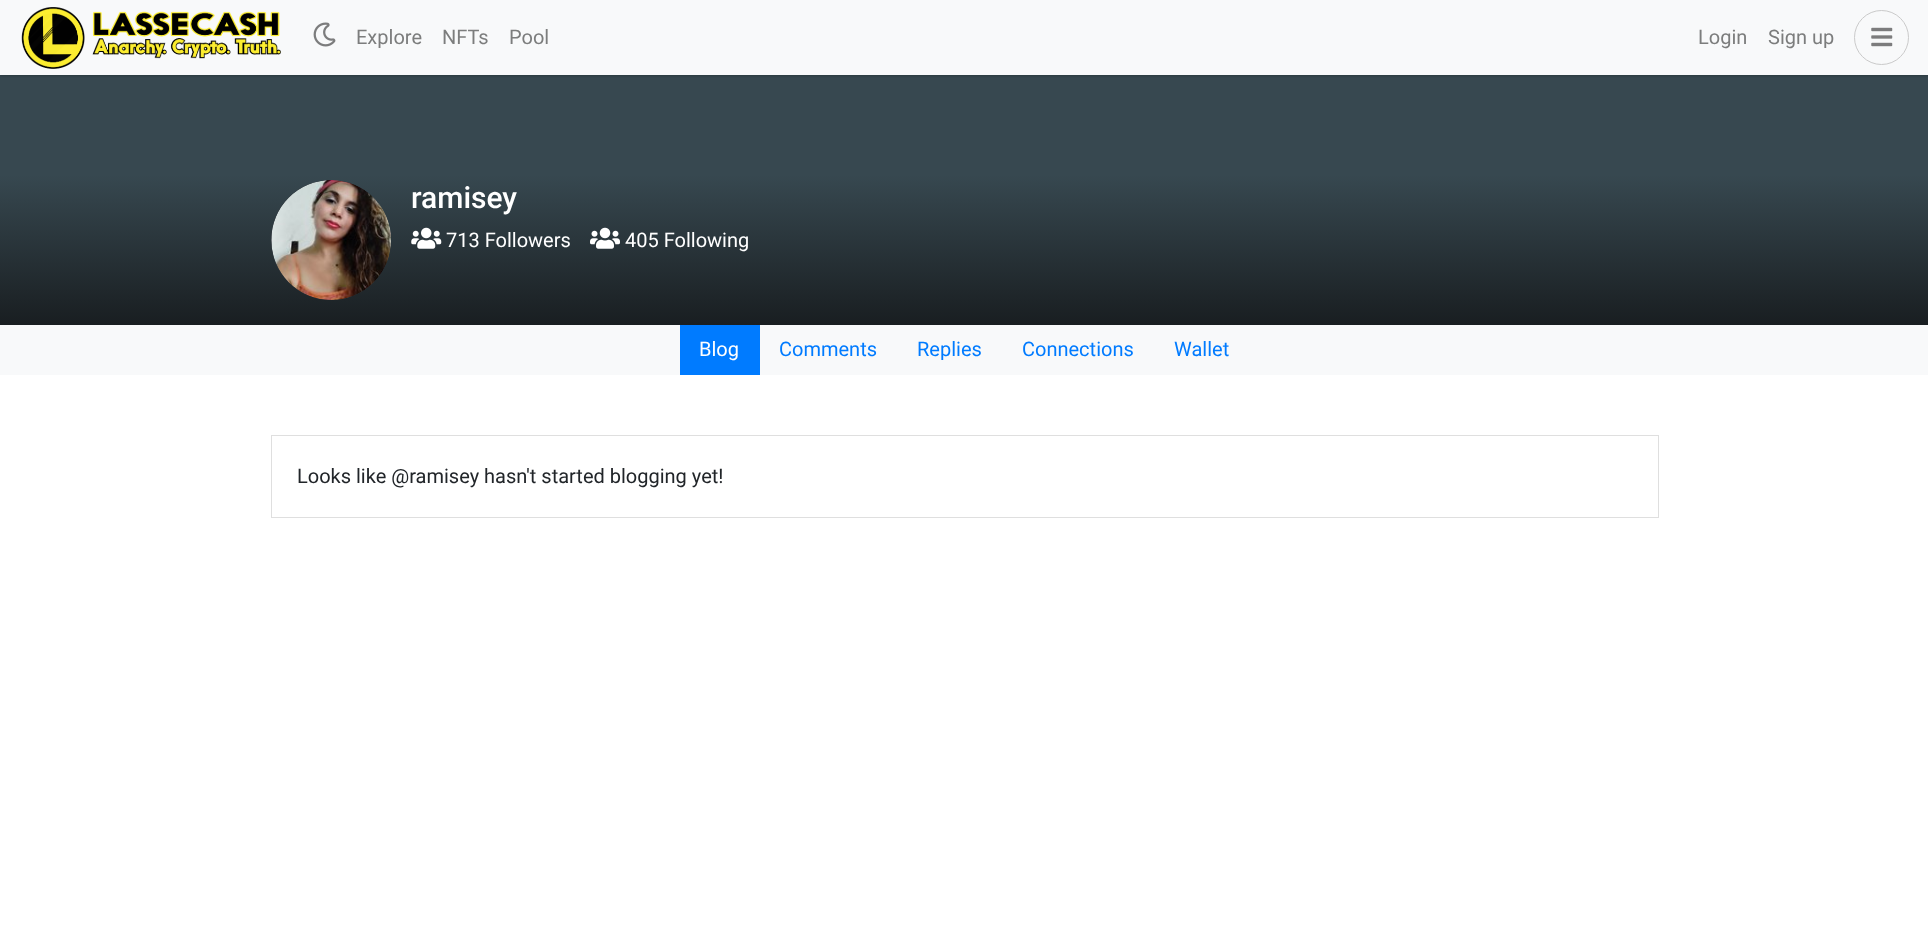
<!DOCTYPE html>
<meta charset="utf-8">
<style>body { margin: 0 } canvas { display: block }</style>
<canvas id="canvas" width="1928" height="931"></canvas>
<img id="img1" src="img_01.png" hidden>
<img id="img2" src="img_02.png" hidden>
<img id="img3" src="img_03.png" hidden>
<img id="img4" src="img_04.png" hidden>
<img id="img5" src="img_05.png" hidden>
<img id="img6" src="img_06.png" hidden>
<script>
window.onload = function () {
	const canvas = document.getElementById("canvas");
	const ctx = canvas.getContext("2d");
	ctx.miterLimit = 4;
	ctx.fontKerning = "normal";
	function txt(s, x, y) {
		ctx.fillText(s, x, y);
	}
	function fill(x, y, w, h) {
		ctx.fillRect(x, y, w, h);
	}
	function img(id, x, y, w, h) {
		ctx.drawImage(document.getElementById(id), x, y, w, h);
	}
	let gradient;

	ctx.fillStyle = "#FFFFFF";
	fill(0, 0, 1928, 931);
	gradient = ctx.createLinearGradient(964, 75, 964, 325);
	gradient.addColorStop(0, "#374850");
	gradient.addColorStop(0.4, "#374850");
	gradient.addColorStop(1, "#191E21");
	ctx.fillStyle = gradient;
	fill(0, 75, 1928, 250);
	ctx.fillStyle = "rgba(0, 0, 0, 0.14)";
	ctx.filter = "blur(1px)";
	ctx.beginPath();
	ctx.rect(0, 1, 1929, 75);
	ctx.fill();
	ctx.filter = "none";
	ctx.fillStyle = "rgba(0, 0, 0, 0.07)";
	ctx.filter = "blur(2px)";
	ctx.beginPath();
	ctx.rect(0, 1, 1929, 75);
	ctx.fill();
	ctx.filter = "none";
	ctx.fillStyle = "#F8F9FA";
	fill(0, 0, 1928, 75);
	img("img1", 21, 7, 260, 62);
	img("img2", 313, 22, 23, 25);
	ctx.beginPath();
	ctx.arc(1881.5, 37.5, 27, 0, Math.PI * 2);
	ctx.strokeStyle = "#CACACA";
	ctx.stroke();
	img("img3", 1871, 27, 22, 20);
	ctx.fillStyle = "#343A40";
	ctx.beginPath();
	ctx.arc(331, 240, 60, 0, Math.PI * 2);
	ctx.fill();
	img("img4", 271, 180, 120, 120);
	img("img5", 411, 227, 31, 22);
	img("img6", 590, 227, 30, 22);
	ctx.fillStyle = "#F8F9FA";
	fill(0, 325, 1928, 50);
	ctx.fillStyle = "#007BFF";
	fill(680, 325, 80, 50);
	ctx.strokeStyle = "#DFDFDF";
	ctx.strokeRect(271.5, 435.5, 1387, 82);
	ctx.font = "20px Roboto";
	ctx.fillStyle = "#7C7D7D";
	txt("Explore", 356, 44);
	txt("NFTs", 442, 44);
	txt("Pool", 509, 44);
	txt("Login", 1698, 44);
	txt("Sign up", 1768, 44);
	ctx.font = "500 30px Roboto";
	ctx.fillStyle = "#FFFFFF";
	txt("ramisey", 411, 208);
	ctx.font = "20px Roboto";
	txt("713 Followers", 446, 247);
	txt("405 Following", 625, 247);
	txt("Blog", 699, 356);
	ctx.fillStyle = "#007BFF";
	txt("Comments", 779, 356);
	txt("Replies", 917, 356);
	txt("Connections", 1022, 356);
	txt("Wallet", 1174, 356);
	ctx.fillStyle = "#212529";
	txt("Looks like @ramisey hasn't started blogging yet!", 297, 483);
};
</script>
